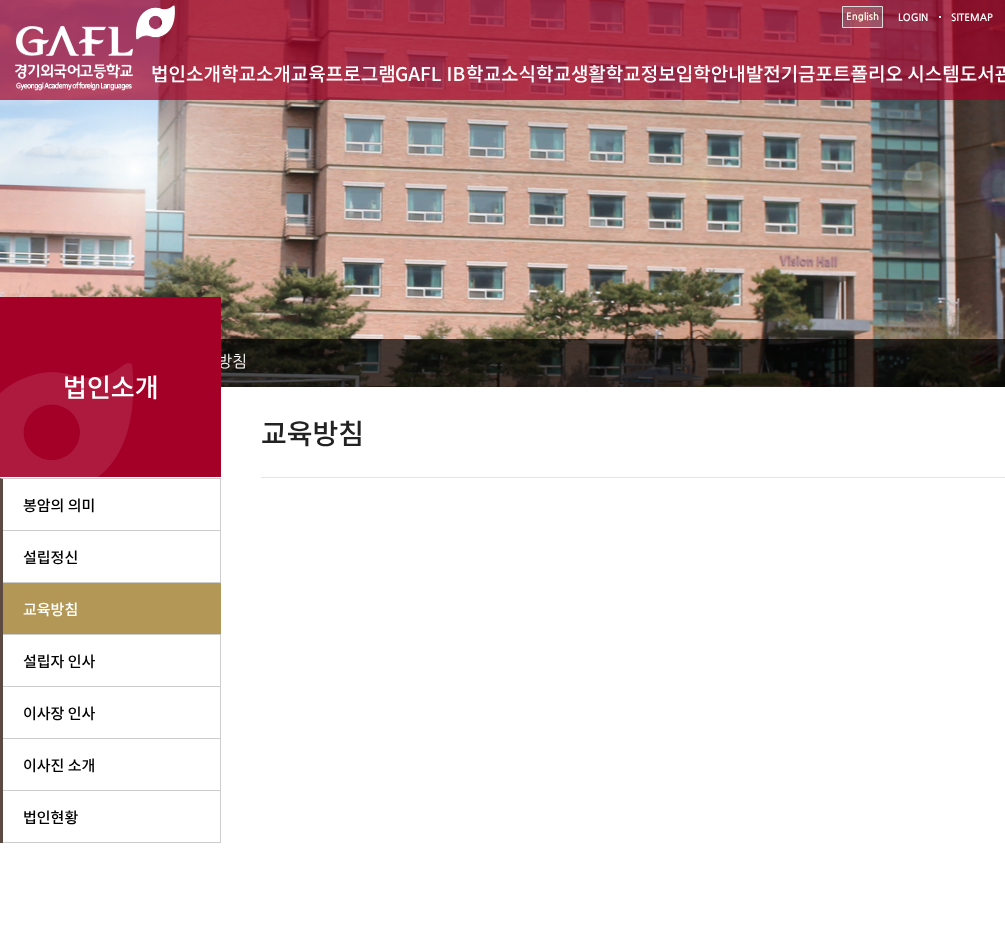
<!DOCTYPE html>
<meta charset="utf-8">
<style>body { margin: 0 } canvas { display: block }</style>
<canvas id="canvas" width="1005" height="947"></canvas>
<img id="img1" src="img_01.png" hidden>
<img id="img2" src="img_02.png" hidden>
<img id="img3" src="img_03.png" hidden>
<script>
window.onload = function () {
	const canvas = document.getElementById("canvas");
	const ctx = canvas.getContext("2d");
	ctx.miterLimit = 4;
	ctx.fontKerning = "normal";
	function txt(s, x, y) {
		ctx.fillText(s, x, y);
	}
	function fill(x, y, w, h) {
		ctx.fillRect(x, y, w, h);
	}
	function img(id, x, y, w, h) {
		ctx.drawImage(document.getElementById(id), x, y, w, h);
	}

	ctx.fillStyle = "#FFFFFF";
	fill(0, 0, 1005, 947);
	img("img1", 0, 0, 1005, 387);
	ctx.fillStyle = "rgba(164, 0, 39, 0.7)";
	fill(0, 0, 1005, 100);
	ctx.fillStyle = "rgba(163, 163, 163, 0.3)";
	ctx.beginPath();
	ctx.rect(842.5, 6.5, 40, 21);
	ctx.fill();
	ctx.strokeStyle = "#DDDDDD";
	ctx.stroke();
	ctx.fillStyle = "#FFFFFF";
	fill(939, 16, 2, 2);
	ctx.fillStyle = "rgba(0, 0, 0, 0.7)";
	fill(221, 339, 784, 48);
	ctx.fillStyle = "#CCCCCC";
	ctx.beginPath();
	ctx.moveTo(0, 478);
	ctx.lineTo(221, 478);
	ctx.lineTo(221, 479);
	ctx.lineTo(3, 479);
	ctx.closePath();
	ctx.fill();
	ctx.fillStyle = "#5B4942";
	ctx.beginPath();
	ctx.moveTo(0, 843);
	ctx.lineTo(0, 478);
	ctx.lineTo(3, 479);
	ctx.lineTo(3, 843);
	ctx.closePath();
	ctx.fill();
	ctx.fillStyle = "#CCCCCC";
	fill(3, 530, 218, 1);
	fill(220, 479, 1, 51);
	fill(3, 582, 218, 1);
	fill(220, 531, 1, 51);
	fill(3, 634, 218, 1);
	ctx.fillStyle = "#B39756";
	fill(3, 583, 218, 51);
	ctx.fillStyle = "#CCCCCC";
	fill(3, 686, 218, 1);
	fill(220, 635, 1, 51);
	fill(3, 738, 218, 1);
	fill(220, 687, 1, 51);
	fill(3, 790, 218, 1);
	fill(220, 739, 1, 51);
	fill(3, 842, 218, 1);
	fill(220, 791, 1, 51);
	ctx.fillStyle = "#E5E5E5";
	fill(261, 477, 744, 1);
	ctx.font = "bold 10px NanumGothic";
	ctx.fillStyle = "#FFFEE7";
	txt("English", 846, 20);
	ctx.fillStyle = "#FFFFFF";
	txt("LOGIN", 898, 21);
	txt("SITEMAP", 951, 21);
	ctx.font = "500 19px Noto Sans KR";
	txt("법인소개학교소개교육프로그램", 151, 81);
	img("img2", 15, 5, 160, 86);
	ctx.wordSpacing = "1px";
	txt("GAFL IB", 395, 81);
	ctx.wordSpacing = "0px";
	txt("학교소식학교생활학교정보입학안내발전기금포트폴리오 시스템도서관", 466, 81);
	ctx.font = "16px NanumGothic";
	txt("방침", 217, 367);
	ctx.fillStyle = "#A40027";
	fill(0, 297, 221, 180);
	img("img3", 0, 363, 134, 114);
	ctx.font = "500 26px Noto Sans KR";
	ctx.fillStyle = "#FFFFFF";
	txt("법인소개", 63, 397);
	ctx.font = "500 15px Noto Sans KR";
	ctx.fillStyle = "#010101";
	txt("봉암의 의미", 23, 511);
	txt("설립정신", 23, 563);
	ctx.fillStyle = "#FFFFFF";
	txt("교육방침", 23, 615);
	ctx.fillStyle = "#010101";
	txt("설립자 인사", 23, 667);
	txt("이사장 인사", 23, 719);
	txt("이사진 소개", 23, 771);
	txt("법인현황", 23, 823);
	ctx.font = "500 28px Noto Sans KR";
	ctx.fillStyle = "#222222";
	txt("교육방침", 261, 444);
};
</script>
